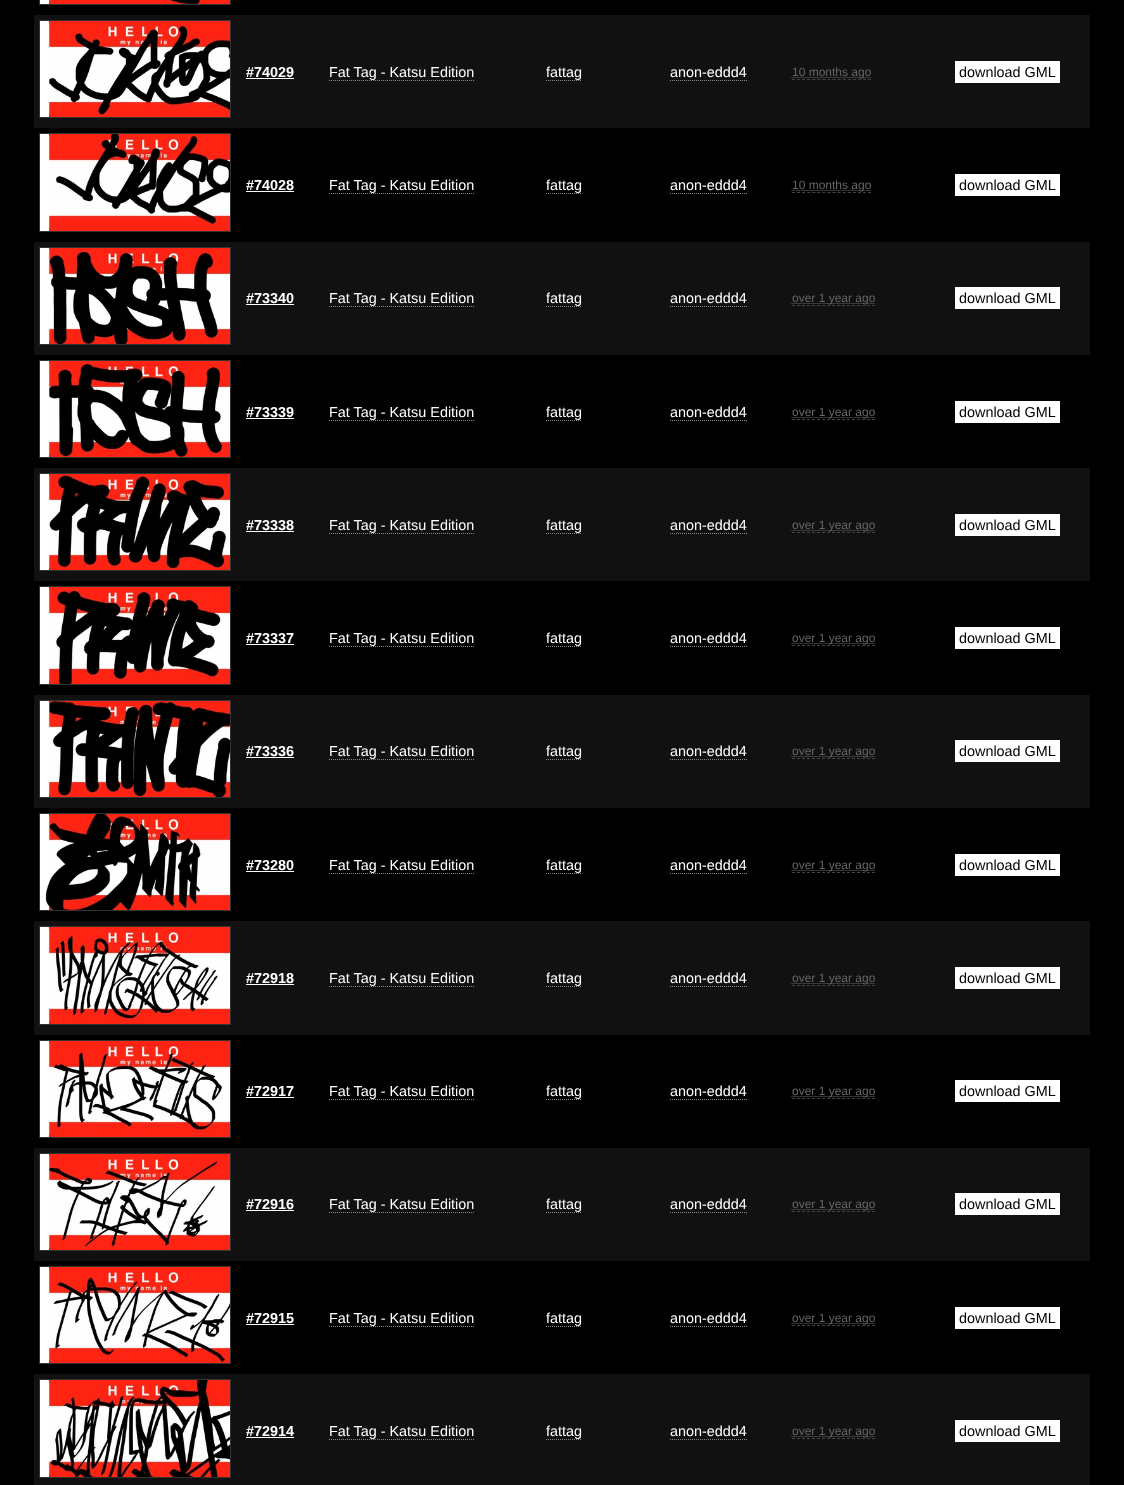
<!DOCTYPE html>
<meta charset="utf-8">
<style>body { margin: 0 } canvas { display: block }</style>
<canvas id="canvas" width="1124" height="1485"></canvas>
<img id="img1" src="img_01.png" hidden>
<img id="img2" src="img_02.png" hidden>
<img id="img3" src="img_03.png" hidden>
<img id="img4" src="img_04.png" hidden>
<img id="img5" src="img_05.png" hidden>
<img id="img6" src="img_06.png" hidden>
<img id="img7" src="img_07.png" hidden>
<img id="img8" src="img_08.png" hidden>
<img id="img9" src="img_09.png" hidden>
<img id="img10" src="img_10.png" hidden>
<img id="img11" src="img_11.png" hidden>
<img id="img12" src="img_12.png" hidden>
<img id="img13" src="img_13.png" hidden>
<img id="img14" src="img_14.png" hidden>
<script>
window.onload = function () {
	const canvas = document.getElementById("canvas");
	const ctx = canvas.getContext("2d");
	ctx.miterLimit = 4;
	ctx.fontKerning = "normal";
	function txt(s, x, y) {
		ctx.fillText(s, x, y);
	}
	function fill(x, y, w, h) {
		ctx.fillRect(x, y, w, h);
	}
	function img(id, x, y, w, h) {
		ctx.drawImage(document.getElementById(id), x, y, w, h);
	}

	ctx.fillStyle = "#000000";
	fill(0, 0, 1124, 1485);
	ctx.strokeStyle = "#333333";
	ctx.strokeRect(39.5, -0.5, 191, 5);
	img("img1", 40, 0, 190, 4);
	ctx.fillStyle = "#111111";
	fill(34, 15, 1056, 113);
	ctx.strokeRect(39.5, 20.5, 191, 97);
	img("img2", 40, 21, 190, 96);
	ctx.fillStyle = "#FFFFFF";
	fill(246, 78, 48, 1);
	ctx.beginPath();
	ctx.moveTo(329, 80.5);
	ctx.lineTo(474, 80.5);
	ctx.strokeStyle = "#888888";
	ctx.setLineDash([1, 1]);
	ctx.stroke();
	ctx.beginPath();
	ctx.moveTo(546, 80.5);
	ctx.lineTo(582, 80.5);
	ctx.stroke();
	ctx.beginPath();
	ctx.moveTo(670, 80.5);
	ctx.lineTo(747, 80.5);
	ctx.stroke();
	ctx.beginPath();
	ctx.moveTo(792, 79.5);
	ctx.lineTo(871, 79.5);
	ctx.strokeStyle = "#444444";
	ctx.setLineDash([3, 2.07]);
	ctx.stroke();
	ctx.beginPath();
	ctx.moveTo(791.5, 77.5);
	ctx.lineTo(871, 77.5);
	ctx.strokeStyle = "#666666";
	ctx.setLineDash([1, 1]);
	ctx.stroke();
	fill(955, 61, 105, 22);
	ctx.strokeStyle = "#333333";
	ctx.setLineDash([]);
	ctx.strokeRect(39.5, 133.5, 191, 98);
	img("img3", 40, 134, 190, 97);
	fill(246, 191, 48, 1);
	ctx.beginPath();
	ctx.moveTo(329, 193.5);
	ctx.lineTo(474, 193.5);
	ctx.strokeStyle = "#888888";
	ctx.setLineDash([1, 1]);
	ctx.stroke();
	ctx.beginPath();
	ctx.moveTo(546, 193.5);
	ctx.lineTo(582, 193.5);
	ctx.stroke();
	ctx.beginPath();
	ctx.moveTo(670, 193.5);
	ctx.lineTo(747, 193.5);
	ctx.stroke();
	ctx.beginPath();
	ctx.moveTo(792, 192.5);
	ctx.lineTo(871, 192.5);
	ctx.strokeStyle = "#444444";
	ctx.setLineDash([3, 2.07]);
	ctx.stroke();
	ctx.beginPath();
	ctx.moveTo(791.5, 190.5);
	ctx.lineTo(871, 190.5);
	ctx.strokeStyle = "#666666";
	ctx.setLineDash([1, 1]);
	ctx.stroke();
	fill(955, 174, 105, 22);
	ctx.fillStyle = "#111111";
	fill(34, 242, 1056, 113);
	ctx.strokeStyle = "#333333";
	ctx.setLineDash([]);
	ctx.strokeRect(39.5, 247.5, 191, 97);
	img("img4", 40, 248, 190, 96);
	ctx.fillStyle = "#FFFFFF";
	fill(246, 304, 48, 1);
	ctx.beginPath();
	ctx.moveTo(329, 306.5);
	ctx.lineTo(474, 306.5);
	ctx.strokeStyle = "#888888";
	ctx.setLineDash([1, 1]);
	ctx.stroke();
	ctx.beginPath();
	ctx.moveTo(546, 306.5);
	ctx.lineTo(582, 306.5);
	ctx.stroke();
	ctx.beginPath();
	ctx.moveTo(670, 306.5);
	ctx.lineTo(747, 306.5);
	ctx.stroke();
	ctx.beginPath();
	ctx.moveTo(792, 305.5);
	ctx.lineTo(875, 305.5);
	ctx.strokeStyle = "#444444";
	ctx.setLineDash([3, 2]);
	ctx.stroke();
	ctx.beginPath();
	ctx.moveTo(791.5, 303.5);
	ctx.lineTo(875, 303.5);
	ctx.strokeStyle = "#666666";
	ctx.setLineDash([1, 1]);
	ctx.stroke();
	fill(955, 287, 105, 22);
	ctx.strokeStyle = "#333333";
	ctx.setLineDash([]);
	ctx.strokeRect(39.5, 360.5, 191, 97);
	img("img5", 40, 361, 190, 96);
	fill(246, 418, 48, 1);
	ctx.beginPath();
	ctx.moveTo(329, 420.5);
	ctx.lineTo(474, 420.5);
	ctx.strokeStyle = "#888888";
	ctx.setLineDash([1, 1]);
	ctx.stroke();
	ctx.beginPath();
	ctx.moveTo(546, 420.5);
	ctx.lineTo(582, 420.5);
	ctx.stroke();
	ctx.beginPath();
	ctx.moveTo(670, 420.5);
	ctx.lineTo(747, 420.5);
	ctx.stroke();
	ctx.beginPath();
	ctx.moveTo(792, 419.5);
	ctx.lineTo(875, 419.5);
	ctx.strokeStyle = "#444444";
	ctx.setLineDash([3, 2]);
	ctx.stroke();
	ctx.beginPath();
	ctx.moveTo(791.5, 417.5);
	ctx.lineTo(875, 417.5);
	ctx.strokeStyle = "#666666";
	ctx.setLineDash([1, 1]);
	ctx.stroke();
	fill(955, 401, 105, 22);
	ctx.fillStyle = "#111111";
	fill(34, 468, 1056, 113);
	ctx.strokeStyle = "#333333";
	ctx.setLineDash([]);
	ctx.strokeRect(39.5, 473.5, 191, 97);
	img("img6", 40, 474, 190, 96);
	ctx.fillStyle = "#FFFFFF";
	fill(246, 531, 48, 1);
	ctx.beginPath();
	ctx.moveTo(329, 533.5);
	ctx.lineTo(474, 533.5);
	ctx.strokeStyle = "#888888";
	ctx.setLineDash([1, 1]);
	ctx.stroke();
	ctx.beginPath();
	ctx.moveTo(546, 533.5);
	ctx.lineTo(582, 533.5);
	ctx.stroke();
	ctx.beginPath();
	ctx.moveTo(670, 533.5);
	ctx.lineTo(747, 533.5);
	ctx.stroke();
	ctx.beginPath();
	ctx.moveTo(792, 532.5);
	ctx.lineTo(875, 532.5);
	ctx.strokeStyle = "#444444";
	ctx.setLineDash([3, 2]);
	ctx.stroke();
	ctx.beginPath();
	ctx.moveTo(791.5, 530.5);
	ctx.lineTo(875, 530.5);
	ctx.strokeStyle = "#666666";
	ctx.setLineDash([1, 1]);
	ctx.stroke();
	fill(955, 514, 105, 22);
	ctx.strokeStyle = "#333333";
	ctx.setLineDash([]);
	ctx.strokeRect(39.5, 586.5, 191, 98);
	img("img7", 40, 587, 190, 97);
	fill(246, 644, 48, 1);
	ctx.beginPath();
	ctx.moveTo(329, 646.5);
	ctx.lineTo(474, 646.5);
	ctx.strokeStyle = "#888888";
	ctx.setLineDash([1, 1]);
	ctx.stroke();
	ctx.beginPath();
	ctx.moveTo(546, 646.5);
	ctx.lineTo(582, 646.5);
	ctx.stroke();
	ctx.beginPath();
	ctx.moveTo(670, 646.5);
	ctx.lineTo(747, 646.5);
	ctx.stroke();
	ctx.beginPath();
	ctx.moveTo(792, 645.5);
	ctx.lineTo(875, 645.5);
	ctx.strokeStyle = "#444444";
	ctx.setLineDash([3, 2]);
	ctx.stroke();
	ctx.beginPath();
	ctx.moveTo(791.5, 643.5);
	ctx.lineTo(875, 643.5);
	ctx.strokeStyle = "#666666";
	ctx.setLineDash([1, 1]);
	ctx.stroke();
	fill(955, 627, 105, 22);
	ctx.fillStyle = "#111111";
	fill(34, 695, 1056, 113);
	ctx.strokeStyle = "#333333";
	ctx.setLineDash([]);
	ctx.strokeRect(39.5, 700.5, 191, 97);
	img("img8", 40, 701, 190, 96);
	ctx.fillStyle = "#FFFFFF";
	fill(246, 757, 48, 1);
	ctx.beginPath();
	ctx.moveTo(329, 759.5);
	ctx.lineTo(474, 759.5);
	ctx.strokeStyle = "#888888";
	ctx.setLineDash([1, 1]);
	ctx.stroke();
	ctx.beginPath();
	ctx.moveTo(546, 759.5);
	ctx.lineTo(582, 759.5);
	ctx.stroke();
	ctx.beginPath();
	ctx.moveTo(670, 759.5);
	ctx.lineTo(747, 759.5);
	ctx.stroke();
	ctx.beginPath();
	ctx.moveTo(792, 758.5);
	ctx.lineTo(875, 758.5);
	ctx.strokeStyle = "#444444";
	ctx.setLineDash([3, 2]);
	ctx.stroke();
	ctx.beginPath();
	ctx.moveTo(791.5, 756.5);
	ctx.lineTo(875, 756.5);
	ctx.strokeStyle = "#666666";
	ctx.setLineDash([1, 1]);
	ctx.stroke();
	fill(955, 740, 105, 22);
	ctx.strokeStyle = "#333333";
	ctx.setLineDash([]);
	ctx.strokeRect(39.5, 813.5, 191, 97);
	img("img9", 40, 814, 190, 96);
	fill(246, 871, 48, 1);
	ctx.beginPath();
	ctx.moveTo(329, 873.5);
	ctx.lineTo(474, 873.5);
	ctx.strokeStyle = "#888888";
	ctx.setLineDash([1, 1]);
	ctx.stroke();
	ctx.beginPath();
	ctx.moveTo(546, 873.5);
	ctx.lineTo(582, 873.5);
	ctx.stroke();
	ctx.beginPath();
	ctx.moveTo(670, 873.5);
	ctx.lineTo(747, 873.5);
	ctx.stroke();
	ctx.beginPath();
	ctx.moveTo(792, 872.5);
	ctx.lineTo(875, 872.5);
	ctx.strokeStyle = "#444444";
	ctx.setLineDash([3, 2]);
	ctx.stroke();
	ctx.beginPath();
	ctx.moveTo(791.5, 870.5);
	ctx.lineTo(875, 870.5);
	ctx.strokeStyle = "#666666";
	ctx.setLineDash([1, 1]);
	ctx.stroke();
	fill(955, 854, 105, 22);
	ctx.fillStyle = "#111111";
	fill(34, 921, 1056, 114);
	ctx.strokeStyle = "#333333";
	ctx.setLineDash([]);
	ctx.strokeRect(39.5, 926.5, 191, 98);
	img("img10", 40, 927, 190, 97);
	ctx.fillStyle = "#FFFFFF";
	fill(246, 984, 48, 1);
	ctx.beginPath();
	ctx.moveTo(329, 986.5);
	ctx.lineTo(474, 986.5);
	ctx.strokeStyle = "#888888";
	ctx.setLineDash([1, 1]);
	ctx.stroke();
	ctx.beginPath();
	ctx.moveTo(546, 986.5);
	ctx.lineTo(582, 986.5);
	ctx.stroke();
	ctx.beginPath();
	ctx.moveTo(670, 986.5);
	ctx.lineTo(747, 986.5);
	ctx.stroke();
	ctx.beginPath();
	ctx.moveTo(792, 985.5);
	ctx.lineTo(875, 985.5);
	ctx.strokeStyle = "#444444";
	ctx.setLineDash([3, 2]);
	ctx.stroke();
	ctx.beginPath();
	ctx.moveTo(791.5, 983.5);
	ctx.lineTo(875, 983.5);
	ctx.strokeStyle = "#666666";
	ctx.setLineDash([1, 1]);
	ctx.stroke();
	fill(955, 967, 105, 22);
	ctx.strokeStyle = "#333333";
	ctx.setLineDash([]);
	ctx.strokeRect(39.5, 1040.5, 191, 97);
	img("img11", 40, 1041, 190, 96);
	fill(246, 1097, 48, 1);
	ctx.beginPath();
	ctx.moveTo(329, 1099.5);
	ctx.lineTo(474, 1099.5);
	ctx.strokeStyle = "#888888";
	ctx.setLineDash([1, 1]);
	ctx.stroke();
	ctx.beginPath();
	ctx.moveTo(546, 1099.5);
	ctx.lineTo(582, 1099.5);
	ctx.stroke();
	ctx.beginPath();
	ctx.moveTo(670, 1099.5);
	ctx.lineTo(747, 1099.5);
	ctx.stroke();
	ctx.beginPath();
	ctx.moveTo(792, 1098.5);
	ctx.lineTo(875, 1098.5);
	ctx.strokeStyle = "#444444";
	ctx.setLineDash([3, 2]);
	ctx.stroke();
	ctx.beginPath();
	ctx.moveTo(791.5, 1096.5);
	ctx.lineTo(875, 1096.5);
	ctx.strokeStyle = "#666666";
	ctx.setLineDash([1, 1]);
	ctx.stroke();
	fill(955, 1080, 105, 22);
	ctx.fillStyle = "#111111";
	fill(34, 1148, 1056, 113);
	ctx.strokeStyle = "#333333";
	ctx.setLineDash([]);
	ctx.strokeRect(39.5, 1153.5, 191, 97);
	img("img12", 40, 1154, 190, 96);
	ctx.fillStyle = "#FFFFFF";
	fill(246, 1210, 48, 1);
	ctx.beginPath();
	ctx.moveTo(329, 1212.5);
	ctx.lineTo(474, 1212.5);
	ctx.strokeStyle = "#888888";
	ctx.setLineDash([1, 1]);
	ctx.stroke();
	ctx.beginPath();
	ctx.moveTo(546, 1212.5);
	ctx.lineTo(582, 1212.5);
	ctx.stroke();
	ctx.beginPath();
	ctx.moveTo(670, 1212.5);
	ctx.lineTo(747, 1212.5);
	ctx.stroke();
	ctx.beginPath();
	ctx.moveTo(792, 1211.5);
	ctx.lineTo(875, 1211.5);
	ctx.strokeStyle = "#444444";
	ctx.setLineDash([3, 2]);
	ctx.stroke();
	ctx.beginPath();
	ctx.moveTo(791.5, 1209.5);
	ctx.lineTo(875, 1209.5);
	ctx.strokeStyle = "#666666";
	ctx.setLineDash([1, 1]);
	ctx.stroke();
	fill(955, 1193, 105, 22);
	ctx.strokeStyle = "#333333";
	ctx.setLineDash([]);
	ctx.strokeRect(39.5, 1266.5, 191, 97);
	img("img13", 40, 1267, 190, 96);
	fill(246, 1324, 48, 1);
	ctx.beginPath();
	ctx.moveTo(329, 1326.5);
	ctx.lineTo(474, 1326.5);
	ctx.strokeStyle = "#888888";
	ctx.setLineDash([1, 1]);
	ctx.stroke();
	ctx.beginPath();
	ctx.moveTo(546, 1326.5);
	ctx.lineTo(582, 1326.5);
	ctx.stroke();
	ctx.beginPath();
	ctx.moveTo(670, 1326.5);
	ctx.lineTo(747, 1326.5);
	ctx.stroke();
	ctx.beginPath();
	ctx.moveTo(792, 1325.5);
	ctx.lineTo(875, 1325.5);
	ctx.strokeStyle = "#444444";
	ctx.setLineDash([3, 2]);
	ctx.stroke();
	ctx.beginPath();
	ctx.moveTo(791.5, 1323.5);
	ctx.lineTo(875, 1323.5);
	ctx.strokeStyle = "#666666";
	ctx.setLineDash([1, 1]);
	ctx.stroke();
	fill(955, 1307, 105, 22);
	ctx.fillStyle = "#111111";
	fill(34, 1374, 1056, 111);
	ctx.strokeStyle = "#333333";
	ctx.setLineDash([]);
	ctx.strokeRect(39.5, 1379.5, 191, 98);
	img("img14", 40, 1380, 190, 97);
	ctx.fillStyle = "#FFFFFF";
	fill(246, 1437, 48, 1);
	ctx.beginPath();
	ctx.moveTo(329, 1439.5);
	ctx.lineTo(474, 1439.5);
	ctx.strokeStyle = "#888888";
	ctx.setLineDash([1, 1]);
	ctx.stroke();
	ctx.beginPath();
	ctx.moveTo(546, 1439.5);
	ctx.lineTo(582, 1439.5);
	ctx.stroke();
	ctx.beginPath();
	ctx.moveTo(670, 1439.5);
	ctx.lineTo(747, 1439.5);
	ctx.stroke();
	ctx.beginPath();
	ctx.moveTo(792, 1438.5);
	ctx.lineTo(875, 1438.5);
	ctx.strokeStyle = "#444444";
	ctx.setLineDash([3, 2]);
	ctx.stroke();
	ctx.beginPath();
	ctx.moveTo(791.5, 1436.5);
	ctx.lineTo(875, 1436.5);
	ctx.strokeStyle = "#666666";
	ctx.setLineDash([1, 1]);
	ctx.stroke();
	fill(955, 1420, 105, 22);
	ctx.font = "bold 14.4px Liberation Sans";
	txt("#74029", 246, 77);
	ctx.font = "14.4px Liberation Sans";
	txt("Fat Tag - Katsu Edition", 329, 77);
	txt("fattag", 546, 77);
	txt("anon-eddd4", 670, 77);
	ctx.font = "12px Liberation Sans";
	ctx.fillStyle = "#666666";
	txt("10 months ago", 792, 76);
	ctx.font = "14.4px Liberation Sans";
	ctx.fillStyle = "#000000";
	txt("download GML", 959, 77);
	ctx.font = "bold 14.4px Liberation Sans";
	ctx.fillStyle = "#FFFFFF";
	txt("#74028", 246, 190);
	ctx.font = "14.4px Liberation Sans";
	txt("Fat Tag - Katsu Edition", 329, 190);
	txt("fattag", 546, 190);
	txt("anon-eddd4", 670, 190);
	ctx.font = "12px Liberation Sans";
	ctx.fillStyle = "#666666";
	txt("10 months ago", 792, 189);
	ctx.font = "14.4px Liberation Sans";
	ctx.fillStyle = "#000000";
	txt("download GML", 959, 190);
	ctx.font = "bold 14.4px Liberation Sans";
	ctx.fillStyle = "#FFFFFF";
	txt("#73340", 246, 303);
	ctx.font = "14.4px Liberation Sans";
	txt("Fat Tag - Katsu Edition", 329, 303);
	txt("fattag", 546, 303);
	txt("anon-eddd4", 670, 303);
	ctx.font = "12px Liberation Sans";
	ctx.fillStyle = "#666666";
	txt("over 1 year ago", 792, 302);
	ctx.font = "14.4px Liberation Sans";
	ctx.fillStyle = "#000000";
	txt("download GML", 959, 303);
	ctx.font = "bold 14.4px Liberation Sans";
	ctx.fillStyle = "#FFFFFF";
	txt("#73339", 246, 417);
	ctx.font = "14.4px Liberation Sans";
	txt("Fat Tag - Katsu Edition", 329, 417);
	txt("fattag", 546, 417);
	txt("anon-eddd4", 670, 417);
	ctx.font = "12px Liberation Sans";
	ctx.fillStyle = "#666666";
	txt("over 1 year ago", 792, 416);
	ctx.font = "14.4px Liberation Sans";
	ctx.fillStyle = "#000000";
	txt("download GML", 959, 417);
	ctx.font = "bold 14.4px Liberation Sans";
	ctx.fillStyle = "#FFFFFF";
	txt("#73338", 246, 530);
	ctx.font = "14.4px Liberation Sans";
	txt("Fat Tag - Katsu Edition", 329, 530);
	txt("fattag", 546, 530);
	txt("anon-eddd4", 670, 530);
	ctx.font = "12px Liberation Sans";
	ctx.fillStyle = "#666666";
	txt("over 1 year ago", 792, 529);
	ctx.font = "14.4px Liberation Sans";
	ctx.fillStyle = "#000000";
	txt("download GML", 959, 530);
	ctx.font = "bold 14.4px Liberation Sans";
	ctx.fillStyle = "#FFFFFF";
	txt("#73337", 246, 643);
	ctx.font = "14.4px Liberation Sans";
	txt("Fat Tag - Katsu Edition", 329, 643);
	txt("fattag", 546, 643);
	txt("anon-eddd4", 670, 643);
	ctx.font = "12px Liberation Sans";
	ctx.fillStyle = "#666666";
	txt("over 1 year ago", 792, 642);
	ctx.font = "14.4px Liberation Sans";
	ctx.fillStyle = "#000000";
	txt("download GML", 959, 643);
	ctx.font = "bold 14.4px Liberation Sans";
	ctx.fillStyle = "#FFFFFF";
	txt("#73336", 246, 756);
	ctx.font = "14.4px Liberation Sans";
	txt("Fat Tag - Katsu Edition", 329, 756);
	txt("fattag", 546, 756);
	txt("anon-eddd4", 670, 756);
	ctx.font = "12px Liberation Sans";
	ctx.fillStyle = "#666666";
	txt("over 1 year ago", 792, 755);
	ctx.font = "14.4px Liberation Sans";
	ctx.fillStyle = "#000000";
	txt("download GML", 959, 756);
	ctx.font = "bold 14.4px Liberation Sans";
	ctx.fillStyle = "#FFFFFF";
	txt("#73280", 246, 870);
	ctx.font = "14.4px Liberation Sans";
	txt("Fat Tag - Katsu Edition", 329, 870);
	txt("fattag", 546, 870);
	txt("anon-eddd4", 670, 870);
	ctx.font = "12px Liberation Sans";
	ctx.fillStyle = "#666666";
	txt("over 1 year ago", 792, 869);
	ctx.font = "14.4px Liberation Sans";
	ctx.fillStyle = "#000000";
	txt("download GML", 959, 870);
	ctx.font = "bold 14.4px Liberation Sans";
	ctx.fillStyle = "#FFFFFF";
	txt("#72918", 246, 983);
	ctx.font = "14.4px Liberation Sans";
	txt("Fat Tag - Katsu Edition", 329, 983);
	txt("fattag", 546, 983);
	txt("anon-eddd4", 670, 983);
	ctx.font = "12px Liberation Sans";
	ctx.fillStyle = "#666666";
	txt("over 1 year ago", 792, 982);
	ctx.font = "14.4px Liberation Sans";
	ctx.fillStyle = "#000000";
	txt("download GML", 959, 983);
	ctx.font = "bold 14.4px Liberation Sans";
	ctx.fillStyle = "#FFFFFF";
	txt("#72917", 246, 1096);
	ctx.font = "14.4px Liberation Sans";
	txt("Fat Tag - Katsu Edition", 329, 1096);
	txt("fattag", 546, 1096);
	txt("anon-eddd4", 670, 1096);
	ctx.font = "12px Liberation Sans";
	ctx.fillStyle = "#666666";
	txt("over 1 year ago", 792, 1095);
	ctx.font = "14.4px Liberation Sans";
	ctx.fillStyle = "#000000";
	txt("download GML", 959, 1096);
	ctx.font = "bold 14.4px Liberation Sans";
	ctx.fillStyle = "#FFFFFF";
	txt("#72916", 246, 1209);
	ctx.font = "14.4px Liberation Sans";
	txt("Fat Tag - Katsu Edition", 329, 1209);
	txt("fattag", 546, 1209);
	txt("anon-eddd4", 670, 1209);
	ctx.font = "12px Liberation Sans";
	ctx.fillStyle = "#666666";
	txt("over 1 year ago", 792, 1208);
	ctx.font = "14.4px Liberation Sans";
	ctx.fillStyle = "#000000";
	txt("download GML", 959, 1209);
	ctx.font = "bold 14.4px Liberation Sans";
	ctx.fillStyle = "#FFFFFF";
	txt("#72915", 246, 1323);
	ctx.font = "14.4px Liberation Sans";
	txt("Fat Tag - Katsu Edition", 329, 1323);
	txt("fattag", 546, 1323);
	txt("anon-eddd4", 670, 1323);
	ctx.font = "12px Liberation Sans";
	ctx.fillStyle = "#666666";
	txt("over 1 year ago", 792, 1322);
	ctx.font = "14.4px Liberation Sans";
	ctx.fillStyle = "#000000";
	txt("download GML", 959, 1323);
	ctx.font = "bold 14.4px Liberation Sans";
	ctx.fillStyle = "#FFFFFF";
	txt("#72914", 246, 1436);
	ctx.font = "14.4px Liberation Sans";
	txt("Fat Tag - Katsu Edition", 329, 1436);
	txt("fattag", 546, 1436);
	txt("anon-eddd4", 670, 1436);
	ctx.font = "12px Liberation Sans";
	ctx.fillStyle = "#666666";
	txt("over 1 year ago", 792, 1435);
	ctx.font = "14.4px Liberation Sans";
	ctx.fillStyle = "#000000";
	txt("download GML", 959, 1436);
};
</script>
